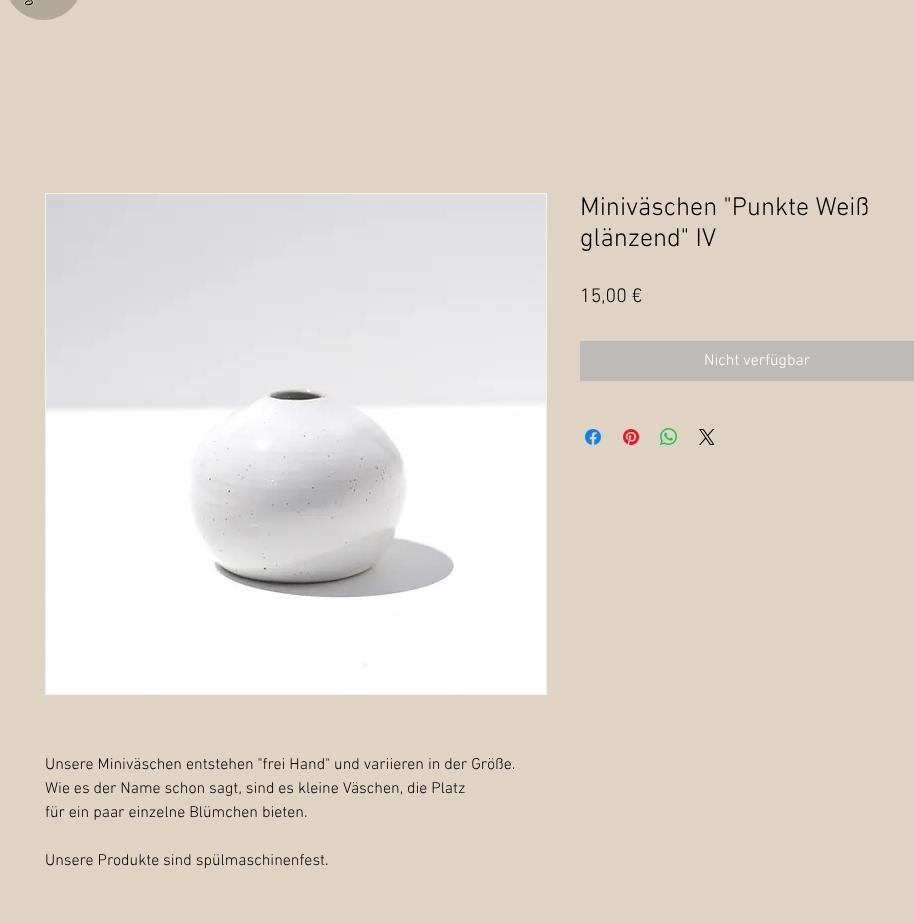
<!DOCTYPE html>
<meta charset="utf-8">
<style>body { margin: 0 } canvas { display: block }</style>
<canvas id="canvas" width="914" height="923"></canvas>
<img id="img1" src="img_01.png" hidden>
<img id="img2" src="img_02.png" hidden>
<img id="img3" src="img_03.png" hidden>
<img id="img4" src="img_04.png" hidden>
<img id="img5" src="img_05.png" hidden>
<img id="img6" src="img_06.png" hidden>
<script>
window.onload = function () {
	const canvas = document.getElementById("canvas");
	const ctx = canvas.getContext("2d");
	ctx.miterLimit = 4;
	ctx.fontKerning = "normal";
	function txt(s, x, y) {
		ctx.fillText(s, x, y);
	}
	function fill(x, y, w, h) {
		ctx.fillRect(x, y, w, h);
	}
	function img(id, x, y, w, h) {
		ctx.drawImage(document.getElementById(id), x, y, w, h);
	}

	ctx.fillStyle = "#DFD4C4";
	fill(0, 0, 914, 923);
	img("img1", 10, 0, 68, 20);
	ctx.fillStyle = "#BDBBB9";
	fill(580, 341, 334, 40);
	img("img2", 585, 429, 16, 16);
	img("img3", 623, 429, 16, 16);
	img("img4", 660, 428, 17, 17);
	img("img5", 699, 429, 16, 16);
	ctx.strokeStyle = "#F2F1F0";
	ctx.strokeRect(45.5, 193.5, 501, 501);
	img("img6", 46, 194, 500, 500);
	ctx.font = "300 26px 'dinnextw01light'";
	ctx.fillStyle = "#000000";
	txt("Miniväschen \"Punkte Weiß", 580, 215);
	txt("glänzend\" IV", 580, 246);
	ctx.font = "300 20px 'dinnextw01light'";
	txt("15,00 €", 580, 302);
	ctx.font = "300 16px 'dinnextw01light'";
	ctx.fillStyle = "#FFFFFF";
	txt("Nicht verfügbar", 704, 365);
	ctx.fillStyle = "#000000";
	txt("Unsere Miniväschen entstehen \"frei Hand\" und variieren in der Größe.", 45, 769);
	txt("Wie es der Name schon sagt, sind es kleine Väschen, die Platz", 45, 793);
	txt("für ein paar einzelne Blümchen bieten.", 45, 817);
	txt("Unsere Produkte sind spülmaschinenfest.", 45, 865);
};
</script>
